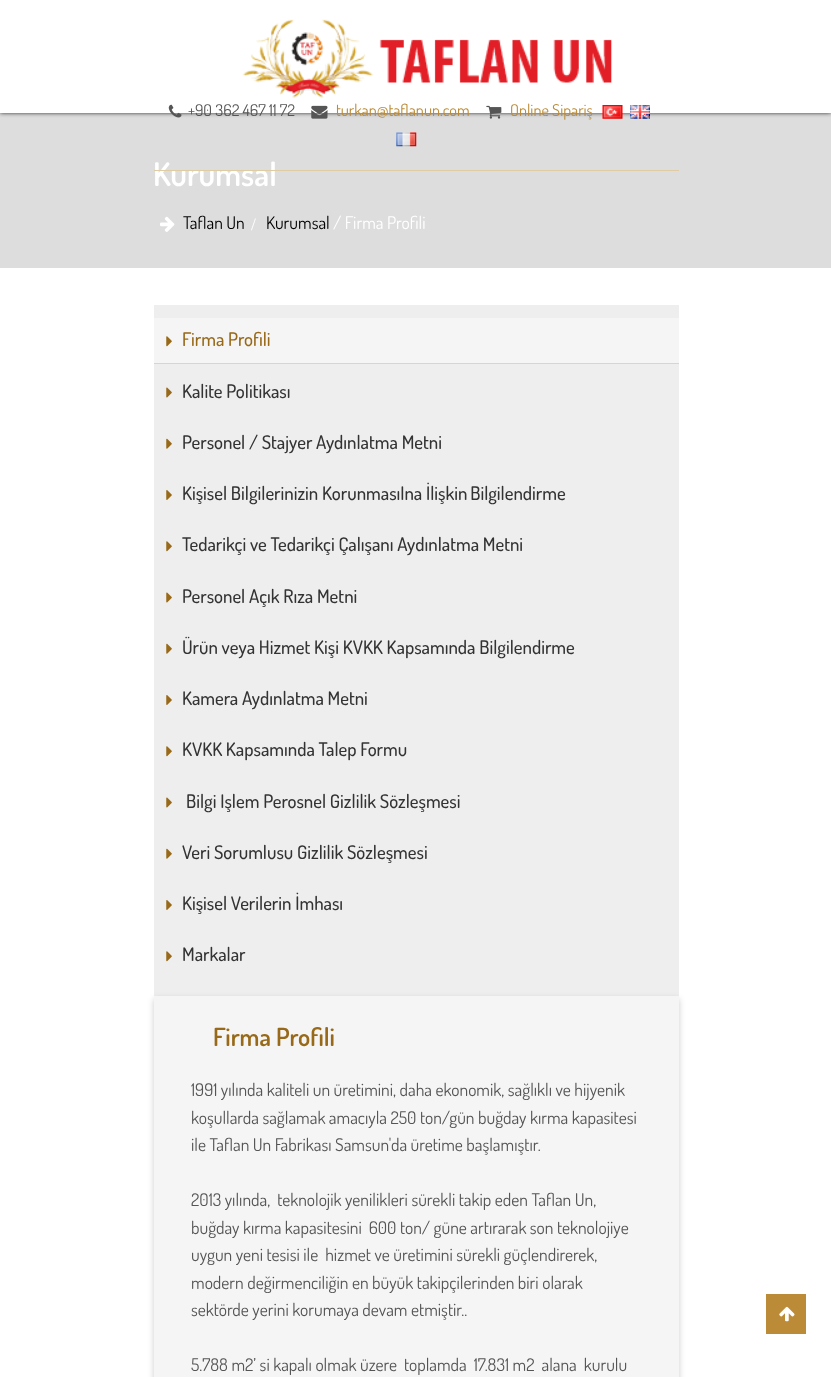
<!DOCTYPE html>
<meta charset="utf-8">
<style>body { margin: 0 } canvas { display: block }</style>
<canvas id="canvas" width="831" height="1377"></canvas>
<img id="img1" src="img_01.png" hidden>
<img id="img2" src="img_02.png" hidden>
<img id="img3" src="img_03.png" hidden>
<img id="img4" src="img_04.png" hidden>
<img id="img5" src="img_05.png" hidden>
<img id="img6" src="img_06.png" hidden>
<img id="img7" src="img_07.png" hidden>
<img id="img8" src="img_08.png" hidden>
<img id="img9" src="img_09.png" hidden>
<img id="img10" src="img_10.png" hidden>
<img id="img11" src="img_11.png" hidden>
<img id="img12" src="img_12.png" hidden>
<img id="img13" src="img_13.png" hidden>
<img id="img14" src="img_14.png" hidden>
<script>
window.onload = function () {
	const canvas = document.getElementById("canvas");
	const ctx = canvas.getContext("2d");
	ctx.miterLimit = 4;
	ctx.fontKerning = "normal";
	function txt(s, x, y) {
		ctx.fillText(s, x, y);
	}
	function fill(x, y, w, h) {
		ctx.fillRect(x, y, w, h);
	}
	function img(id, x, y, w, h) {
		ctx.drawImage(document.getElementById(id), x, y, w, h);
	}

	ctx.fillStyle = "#FFFFFF";
	fill(0, 0, 831, 1377);
	ctx.fillStyle = "#DDDDDD";
	fill(0, 113, 831, 155);
	ctx.save();
	ctx.beginPath();
	ctx.moveTo(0, 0);
	ctx.lineTo(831, 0);
	ctx.lineTo(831, 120);
	ctx.lineTo(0, 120);
	ctx.closePath();
	ctx.moveTo(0, 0);
	ctx.lineTo(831, 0);
	ctx.lineTo(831, 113);
	ctx.lineTo(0, 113);
	ctx.closePath();
	ctx.clip("evenodd");
	ctx.fillStyle = "rgba(0, 0, 0, 0.8)";
	ctx.filter = "blur(2px)";
	ctx.beginPath();
	ctx.rect(0, 0, 831, 113);
	ctx.fill();
	ctx.filter = "none";
	ctx.restore();
	img("img1", 242, 19, 370, 79);
	img("img2", 168, 104, 14, 14);
	img("img3", 311, 105, 17, 14);
	img("img4", 486, 105, 16, 14);
	img("img5", 602, 105, 21, 14);
	img("img6", 630, 105, 20, 14);
	img("img7", 396, 132, 21, 15);
	img("img8", 160, 216, 15, 16);
	ctx.fillStyle = "#EEEEEE";
	fill(154, 305, 525, 691);
	ctx.fillStyle = "rgba(0, 0, 0, 0.1)";
	ctx.filter = "blur(0.5px)";
	ctx.beginPath();
	ctx.rect(154, 319, 525, 45);
	ctx.fill();
	ctx.filter = "none";
	ctx.fillStyle = "#F5F5F5";
	fill(154, 318, 525, 45);
	img("img9", 166, 336, 6, 11);
	img("img10", 166, 387, 6, 11);
	img("img11", 166, 438, 6, 11);
	img("img12", 166, 490, 6, 10);
	img("img13", 166, 541, 6, 11);
	img("img10", 166, 592, 6, 11);
	img("img11", 166, 643, 6, 11);
	img("img12", 166, 695, 6, 10);
	img("img13", 166, 746, 6, 11);
	img("img10", 166, 797, 6, 11);
	img("img11", 166, 848, 6, 11);
	img("img12", 166, 900, 6, 10);
	img("img13", 166, 951, 6, 11);
	ctx.fillStyle = "rgba(0, 0, 0, 0.2)";
	ctx.filter = "blur(3px)";
	ctx.beginPath();
	ctx.rect(154, 999, 525, 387);
	ctx.fill();
	ctx.filter = "none";
	ctx.fillStyle = "#F5F5F5";
	fill(154, 996, 525, 381);
	ctx.fillStyle = "#BB8B38";
	fill(766, 1294, 40, 40);
	img("img14", 779, 1306, 16, 16);
	ctx.font = "16.25px Dosis";
	ctx.fillStyle = "#555555";
	txt("+90 362 467 11 72", 188, 116);
	ctx.fillStyle = "#BB8B38";
	txt("turkan@taflanun.com", 336, 116);
	txt("Online Sipariş", 510, 116);
	ctx.font = "600 32.5px Dosis";
	ctx.fillStyle = "#FFFFFF";
	txt("Kurumsal", 153, 186);
	ctx.fillStyle = "#DFCCA5";
	fill(154, 170, 525, 1);
	ctx.font = "17.5px Dosis";
	ctx.fillStyle = "#000000";
	txt("Taflan Un", 183, 229);
	ctx.font = "17.5px Liberation Serif";
	ctx.fillStyle = "#FFFFFF";
	txt("/", 251, 230);
	ctx.font = "17.5px Dosis";
	ctx.fillStyle = "#000000";
	txt("Kurumsal", 266, 229);
	ctx.fillStyle = "#FFFFFF";
	txt("/ Firma Profili", 333, 229);
	ctx.font = "500 18.75px Dosis";
	ctx.fillStyle = "#976919";
	txt("Firma Profili", 182, 346);
	ctx.fillStyle = "#333333";
	txt("Kalite Politikası", 182, 398);
	txt("Personel / Stajyer Aydınlatma Metni", 182, 449);
	txt("Kişisel Bilgilerinizin KorunmasıIna", 182, 500);
	ctx.wordSpacing = "-1px";
	txt("İlişkin Bilgilendirme", 426, 500);
	ctx.wordSpacing = "0px";
	txt("Tedarikçi ve Tedarikçi Çalışanı Aydınlatma Metni", 182, 551);
	txt("Personel Açık Rıza Metni", 182, 603);
	txt("Ürün veya Hizmet Kişi KVKK Kapsamında Bilgilendirme", 182, 654);
	txt("Kamera Aydınlatma Metni", 182, 705);
	txt("KVKK Kapsamında Talep Formu", 182, 756);
	txt("Bilgi Işlem Perosnel Gizlilik Sözleşmesi", 186, 808);
	txt("Veri Sorumlusu Gizlilik Sözleşmesi", 182, 859);
	txt("Kişisel Verilerin İmhası", 182, 910);
	txt("Markalar", 182, 961);
	ctx.font = "600 25px Dosis";
	ctx.fillStyle = "#976919";
	txt("Firma Profili", 213, 1046);
	ctx.font = "17.5px Dosis";
	ctx.fillStyle = "#555555";
	txt("1991 yılında kaliteli un üretimini, daha ekonomik, sağlıklı ve hijyenik", 191, 1096);
	txt("koşullarda sağlamak amacıyla 250 ton/gün buğday kırma kapasitesi", 191, 1124);
	txt("ile Taflan Un Fabrikası Samsun'da üretime başlamıştır.", 191, 1151);
	txt("2013 yılında,  teknolojik yenilikleri sürekli takip eden Taflan Un,", 191, 1206);
	txt("buğday kırma kapasitesini  600 ton/ güne artırarak son teknolojiye", 191, 1234);
	txt("uygun yeni tesisi ile  hizmet ve üretimini sürekli güçlendirerek,", 191, 1261);
	txt("modern değirmenciliğin en büyük takipçilerinden biri olarak", 191, 1289);
	txt("sektörde yerini korumaya devam etmiştir..", 191, 1316);
	txt("5.788 m2’ si kapalı olmak üzere  toplamda  17.831 m2  alana  kurulu", 191, 1371);
};
</script>
